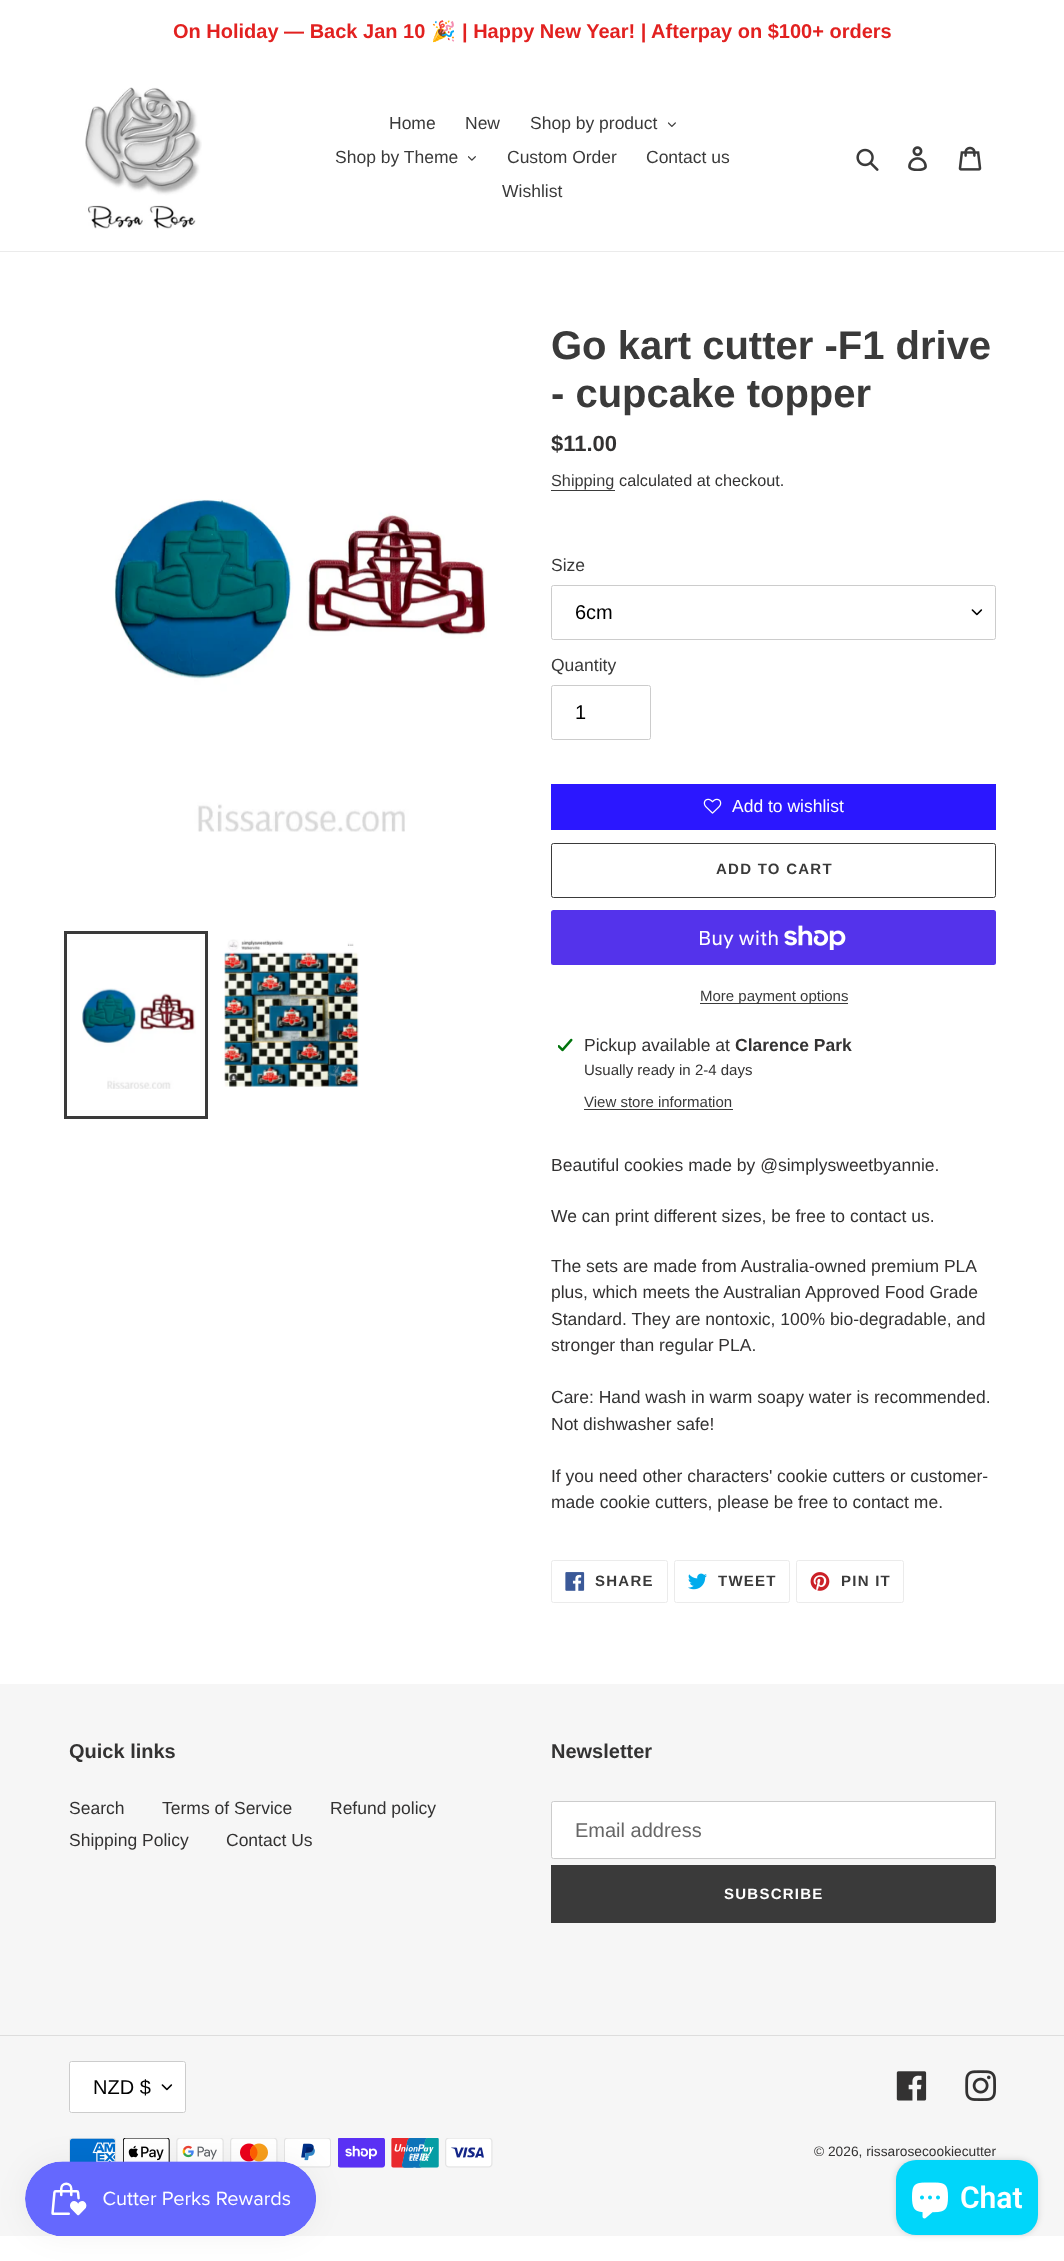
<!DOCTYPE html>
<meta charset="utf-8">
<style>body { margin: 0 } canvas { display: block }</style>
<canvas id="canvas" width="1064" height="2261"></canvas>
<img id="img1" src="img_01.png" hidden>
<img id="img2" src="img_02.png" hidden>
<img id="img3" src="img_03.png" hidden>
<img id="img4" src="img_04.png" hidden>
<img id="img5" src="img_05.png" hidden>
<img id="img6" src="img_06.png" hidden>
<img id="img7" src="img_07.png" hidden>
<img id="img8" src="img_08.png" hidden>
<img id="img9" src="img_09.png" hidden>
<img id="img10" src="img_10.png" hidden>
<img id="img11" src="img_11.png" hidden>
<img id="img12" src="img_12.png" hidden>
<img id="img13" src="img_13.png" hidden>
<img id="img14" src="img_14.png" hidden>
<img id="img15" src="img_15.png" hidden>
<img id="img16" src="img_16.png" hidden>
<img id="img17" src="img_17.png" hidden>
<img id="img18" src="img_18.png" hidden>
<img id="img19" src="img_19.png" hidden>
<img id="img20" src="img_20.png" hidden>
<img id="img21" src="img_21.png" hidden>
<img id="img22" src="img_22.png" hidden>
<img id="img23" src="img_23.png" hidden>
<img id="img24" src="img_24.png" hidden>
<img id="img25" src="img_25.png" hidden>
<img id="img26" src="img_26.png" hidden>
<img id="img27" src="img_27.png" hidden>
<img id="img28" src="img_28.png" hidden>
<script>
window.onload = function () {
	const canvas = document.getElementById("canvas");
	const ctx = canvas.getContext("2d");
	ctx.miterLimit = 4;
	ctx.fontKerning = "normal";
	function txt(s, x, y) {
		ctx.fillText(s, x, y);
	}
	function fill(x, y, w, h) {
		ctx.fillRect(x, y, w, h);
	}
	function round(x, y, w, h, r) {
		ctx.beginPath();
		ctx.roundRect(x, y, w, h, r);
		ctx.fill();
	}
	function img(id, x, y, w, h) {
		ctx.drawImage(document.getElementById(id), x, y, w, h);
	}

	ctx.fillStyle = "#FFFFFF";
	fill(0, 0, 1064, 2261);
	ctx.fillStyle = "#EBEBEB";
	fill(0, 251, 1064, 1);
	img("img1", 85, 87, 117, 142);
	img("img2", 668, 122, 8, 5);
	img("img3", 468, 156, 8, 5);
	img("img4", 856, 148, 23, 23);
	img("img5", 908, 146, 19, 25);
	img("img6", 958, 146, 24, 25);
	img("img7", 114, 499, 373, 333);
	ctx.strokeStyle = "#3A3A3A";
	ctx.lineWidth = 3;
	ctx.strokeRect(65.5, 932.5, 141, 185);
	img("img8", 81, 988, 115, 101);
	img("img9", 224, 939, 135, 148);
	ctx.fillStyle = "#3A3A3A";
	fill(551, 490, 64, 1);
	img("img10", 971, 609, 12, 7);
	ctx.beginPath();
	ctx.roundRect(551.5, 585.5, 444, 54, 2);
	ctx.strokeStyle = "#CCCCCC";
	ctx.lineWidth = 1;
	ctx.stroke();
	ctx.beginPath();
	ctx.roundRect(551.5, 685.5, 99, 54, 2);
	ctx.stroke();
	ctx.fillStyle = "#2B17FF";
	fill(551, 784, 445, 46);
	img("img11", 703, 798, 19, 16);
	ctx.beginPath();
	ctx.roundRect(551.5, 843.5, 444, 54, 2);
	ctx.strokeStyle = "#3A3A3A";
	ctx.stroke();
	ctx.fillStyle = "#5433EB";
	round(551, 910, 445, 55, 2.5);
	img("img12", 784, 925, 62, 25);
	ctx.fillStyle = "#3A3A3A";
	fill(700, 1003, 148, 1);
	img("img13", 558, 1038, 15, 14);
	fill(584, 1109, 149, 1);
	ctx.beginPath();
	ctx.roundRect(551.5, 1560.5, 116, 42, 2);
	ctx.strokeStyle = "#EBEBEB";
	ctx.stroke();
	img("img14", 565, 1572, 20, 19);
	ctx.beginPath();
	ctx.roundRect(674.5, 1560.5, 115, 42, 2);
	ctx.stroke();
	img("img15", 688, 1573, 19, 17);
	ctx.beginPath();
	ctx.roundRect(796.5, 1560.5, 107, 42, 2);
	ctx.stroke();
	img("img16", 810, 1572, 20, 19);
	ctx.fillStyle = "#F6F6F6";
	fill(0, 1684, 1064, 552);
	ctx.fillStyle = "#FFFFFF";
	ctx.beginPath();
	ctx.roundRect(551.5, 1801.5, 444, 57, [2, 0, 0, 2]);
	ctx.fill();
	ctx.strokeStyle = "#CCCCCC";
	ctx.stroke();
	ctx.fillStyle = "#3A3A3A";
	ctx.beginPath();
	ctx.roundRect(551, 1865, 445, 58, [0, 2.5, 2.5, 0]);
	ctx.fill();
	ctx.fillStyle = "#DDDDDD";
	fill(0, 2035, 1064, 1);
	ctx.fillStyle = "#FFFFFF";
	round(69, 2061, 117, 52, 2.5);
	img("img10", 161, 2084, 12, 7);
	ctx.beginPath();
	ctx.roundRect(69.5, 2061.5, 116, 51, 2);
	ctx.stroke();
	img("img17", 896, 2071, 31, 30);
	img("img18", 965, 2070, 31, 31);
	img("img19", 69, 2138, 47, 24);
	img("img20", 123, 2138, 47, 24);
	img("img21", 176, 2138, 48, 24);
	img("img22", 230, 2138, 48, 24);
	img("img23", 284, 2138, 47, 30);
	img("img24", 338, 2138, 47, 30);
	img("img25", 391, 2138, 48, 30);
	img("img26", 445, 2138, 48, 30);
	ctx.fillStyle = "rgba(0, 0, 0, 0.05)";
	ctx.filter = "blur(15.5px)";
	ctx.beginPath();
	ctx.roundRect(25, 2161, 291, 75, 37.5);
	ctx.fill();
	ctx.filter = "none";
	img("img27", 25, 2161, 291, 75);
	ctx.fillStyle = "rgba(0, 0, 0, 0.15)";
	ctx.filter = "blur(3px)";
	ctx.beginPath();
	ctx.roundRect(896, 2160, 142, 75, 20);
	ctx.fill();
	ctx.filter = "none";
	ctx.fillStyle = "#00D6FA";
	round(896, 2160, 142, 75, 20);
	img("img28", 912, 2182, 36, 37);
	ctx.font = "bold 20px Liberation Sans";
	ctx.fillStyle = "#E22120";
	txt("On Holiday — Back Jan 10", 173, 38);
	ctx.font = "bold 20px Noto Color Emoji";
	txt("🎉", 431, 38);
	ctx.font = "bold 20px Liberation Sans";
	txt("| Happy New Year! | Afterpay on $100+ orders", 462, 38);
	ctx.font = "17.5px Liberation Sans";
	ctx.fillStyle = "#3A3A3A";
	txt("Home", 389, 129);
	txt("New", 465, 129);
	txt("Shop by product", 530, 129);
	txt("Shop by Theme", 335, 163);
	txt("Custom Order", 507, 163);
	txt("Contact us", 646, 163);
	txt("Wishlist", 502, 197);
	ctx.font = "bold 40px Liberation Sans";
	txt("Go kart cutter -F1 drive", 551, 359);
	txt("- cupcake topper", 551, 407);
	ctx.font = "bold 22px Liberation Sans";
	ctx.fillStyle = "#333232";
	txt("$11.00", 551, 451);
	ctx.font = "16.25px Liberation Sans";
	ctx.fillStyle = "#3A3A3A";
	txt("Shipping", 551, 486);
	ctx.fillStyle = "#333232";
	txt("calculated at checkout.", 619, 486);
	ctx.font = "17.5px Liberation Sans";
	ctx.fillStyle = "#3A3A3A";
	txt("Size", 551, 571);
	ctx.font = "20px Liberation Sans";
	ctx.fillStyle = "#000000";
	txt("6cm", 575, 619);
	ctx.font = "17.5px Liberation Sans";
	ctx.fillStyle = "#3A3A3A";
	txt("Quantity", 551, 671);
	ctx.font = "20px Liberation Sans";
	ctx.fillStyle = "#000000";
	txt("1", 575, 719);
	ctx.font = "17.5px Liberation Sans";
	ctx.fillStyle = "#FFFFFF";
	txt("Add to wishlist", 732, 812);
	ctx.letterSpacing = "1.25px";
	ctx.font = "bold 15px Liberation Sans";
	ctx.fillStyle = "#3A3A3A";
	txt("ADD TO CART", 716, 874);
	ctx.letterSpacing = "0px";
	ctx.font = "20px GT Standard";
	ctx.fillStyle = "#FFFFFF";
	txt("Buy with", 698, 945);
	ctx.font = "15px Liberation Sans";
	ctx.fillStyle = "#3A3A3A";
	txt("More payment options", 700, 1001);
	ctx.font = "17.5px Liberation Sans";
	ctx.fillStyle = "#333232";
	txt("Pickup available at", 584, 1051);
	ctx.font = "bold 17.5px Liberation Sans";
	txt("Clarence Park", 735, 1051);
	ctx.font = "15px Liberation Sans";
	txt("Usually ready in 2-4 days", 584, 1075);
	ctx.fillStyle = "#3A3A3A";
	txt("View store information", 584, 1107);
	ctx.font = "17.5px Liberation Sans";
	ctx.fillStyle = "#333232";
	txt("Beautiful cookies made by @simplysweetbyannie.", 551, 1171);
	txt("We can print different sizes, be free to contact us.", 551, 1222);
	txt("The sets are made from Australia-owned premium PLA", 551, 1272);
	txt("plus, which meets the Australian Approved Food Grade", 551, 1298);
	txt("Standard. They are nontoxic, 100% bio-degradable, and", 551, 1325);
	txt("stronger than regular PLA.", 551, 1351);
	txt("Care: Hand wash in warm soapy water is recommended.", 551, 1403);
	txt("Not dishwasher safe!", 551, 1430);
	txt("If you need other characters' cookie cutters or customer-", 551, 1482);
	txt("made cookie cutters, please be free to contact me.", 551, 1508);
	ctx.letterSpacing = "1.25px";
	ctx.font = "bold 15px Liberation Sans";
	ctx.fillStyle = "#3A3A3A";
	txt("SHARE", 595, 1586);
	txt("TWEET", 718, 1586);
	txt("PIN IT", 841, 1586);
	ctx.letterSpacing = "0px";
	ctx.font = "bold 20px Liberation Sans";
	ctx.fillStyle = "#333232";
	txt("Quick links", 69, 1758);
	ctx.font = "17.5px Liberation Sans";
	txt("Search", 69, 1814);
	txt("Terms of Service", 162, 1814);
	txt("Refund policy", 330, 1814);
	txt("Shipping Policy", 69, 1846);
	txt("Contact Us", 226, 1846);
	ctx.font = "bold 20px Liberation Sans";
	txt("Newsletter", 551, 1758);
	ctx.font = "20px Liberation Sans";
	ctx.fillStyle = "#666666";
	txt("Email address", 575, 1837);
	ctx.letterSpacing = "1.25px";
	ctx.font = "bold 15px Liberation Sans";
	ctx.fillStyle = "#FFFFFF";
	txt("SUBSCRIBE", 724, 1899);
	ctx.letterSpacing = "0px";
	ctx.font = "20px Liberation Sans";
	ctx.fillStyle = "#000000";
	txt("NZD $", 93, 2094);
	ctx.font = "13.75px Liberation Sans";
	ctx.fillStyle = "#333232";
	txt("© 2026, rissarosecookiecutter", 814, 2156);
	ctx.font = "600 30px Roboto";
	ctx.fillStyle = "#FFFFFF";
	txt("Chat", 960, 2208);
};
</script>
